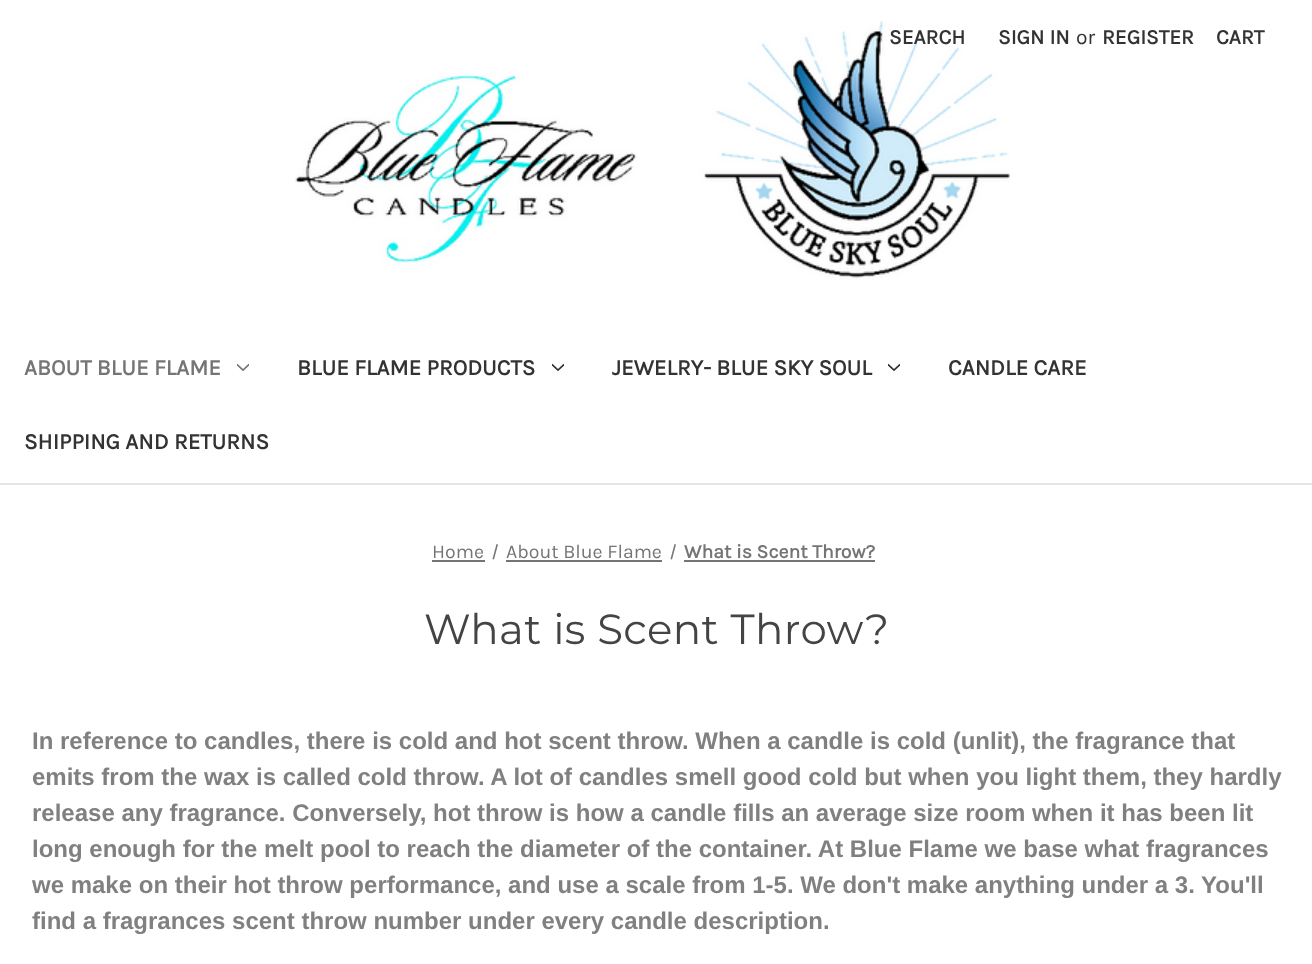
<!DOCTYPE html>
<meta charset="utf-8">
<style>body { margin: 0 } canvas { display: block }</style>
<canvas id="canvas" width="1312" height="964"></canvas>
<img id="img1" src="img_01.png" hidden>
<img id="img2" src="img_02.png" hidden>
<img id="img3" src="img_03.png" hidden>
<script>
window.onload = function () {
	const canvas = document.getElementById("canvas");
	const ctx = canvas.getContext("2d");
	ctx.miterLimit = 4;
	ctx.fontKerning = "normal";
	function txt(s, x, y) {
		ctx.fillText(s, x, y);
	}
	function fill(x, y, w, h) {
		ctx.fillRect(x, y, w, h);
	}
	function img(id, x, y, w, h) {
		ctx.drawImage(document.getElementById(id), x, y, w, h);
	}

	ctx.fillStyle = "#FFFFFF";
	fill(0, 0, 1312, 964);
	ctx.fillStyle = "#E5E5E5";
	fill(0, 483, 1312, 2);
	img("img1", 295, 20, 715, 260);
	img("img2", 237, 363, 12, 8);
	img("img3", 552, 363, 12, 9);
	img("img3", 888, 363, 12, 9);
	ctx.fillStyle = "#757575";
	fill(432, 560, 53, 2);
	ctx.beginPath();
	ctx.moveTo(496.5, 544);
	ctx.lineTo(498, 544.5);
	ctx.lineTo(494, 559.5);
	ctx.lineTo(492.5, 559);
	ctx.closePath();
	ctx.fill();
	fill(506, 560, 156, 2);
	ctx.beginPath();
	ctx.moveTo(674.5, 544);
	ctx.lineTo(676, 544.5);
	ctx.lineTo(672, 559.5);
	ctx.lineTo(670.5, 559);
	ctx.closePath();
	ctx.fill();
	fill(684, 560, 191, 2);
	ctx.font = "bold 21px Karla";
	ctx.fillStyle = "#333333";
	txt("SEARCH", 889, 44);
	txt("SIGN IN", 998, 44);
	ctx.font = "21px Karla";
	txt("or", 1076, 44);
	ctx.font = "bold 21px Karla";
	txt("REGISTER", 1102, 44);
	txt("CART", 1216, 44);
	ctx.font = "bold 22.5px Karla";
	ctx.fillStyle = "#757575";
	txt("ABOUT BLUE FLAME", 24, 375);
	ctx.fillStyle = "#333333";
	txt("BLUE FLAME PRODUCTS", 297, 375);
	txt("JEWELRY- BLUE SKY SOUL", 612, 375);
	txt("CANDLE CARE", 948, 375);
	txt("SHIPPING AND RETURNS", 24, 449);
	ctx.font = "19.5px Karla";
	ctx.fillStyle = "#757575";
	txt("Home", 432, 558);
	txt("About Blue Flame", 506, 558);
	ctx.font = "bold 19.5px Karla";
	txt("What is Scent Throw?", 684, 558);
	ctx.letterSpacing = "0.4px";
	ctx.font = "100 42px Montserrat";
	ctx.fillStyle = "#444444";
	txt("What is Scent Throw?", 424, 644);
	ctx.letterSpacing = "0px";
	ctx.font = "bold 24px Liberation Sans";
	ctx.fillStyle = "#808080";
	txt("In reference to candles, there is cold and hot scent throw. When a candle is cold (unlit), the fragrance that", 32, 749);
	txt("emits from the wax is called cold throw. A lot of candles smell good cold but when you light them, they hardly", 32, 785);
	txt("release any fragrance. Conversely, hot throw is how a candle fills an average size room when it has been lit", 32, 821);
	txt("long enough for the melt pool to reach the diameter of the container. At Blue Flame we base what fragrances", 32, 857);
	txt("we make on their hot throw performance, and use a scale from 1-5. We don't make anything under a 3. You'll", 32, 893);
	txt("find a fragrances scent throw number under every candle description.", 32, 929);
};
</script>
